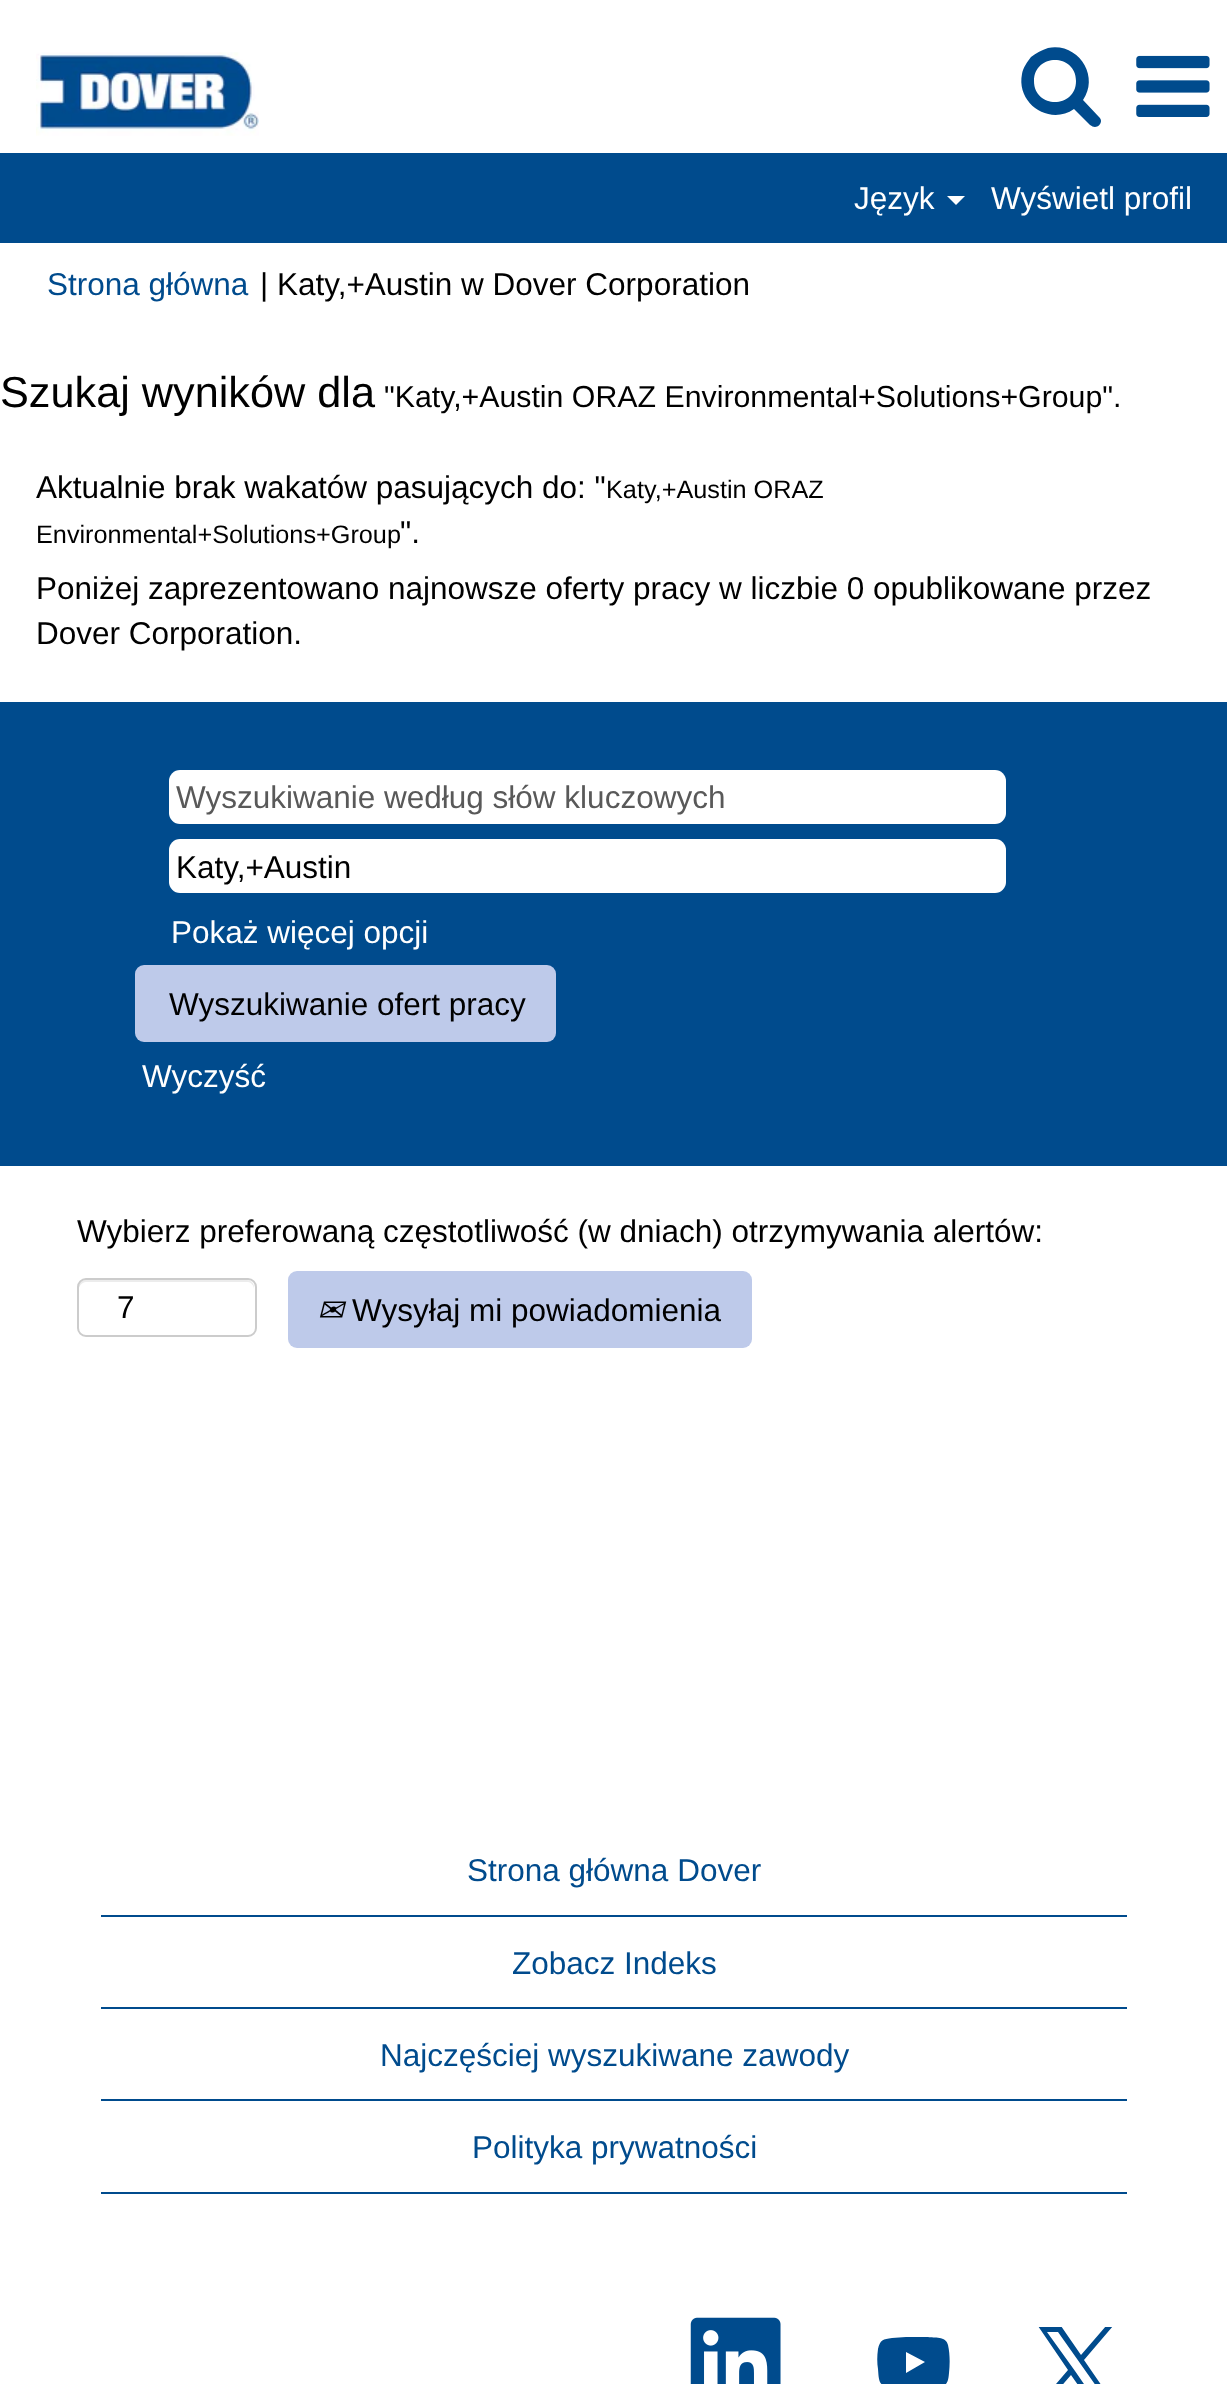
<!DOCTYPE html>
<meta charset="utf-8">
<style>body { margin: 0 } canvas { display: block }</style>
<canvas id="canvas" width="1227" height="2384"></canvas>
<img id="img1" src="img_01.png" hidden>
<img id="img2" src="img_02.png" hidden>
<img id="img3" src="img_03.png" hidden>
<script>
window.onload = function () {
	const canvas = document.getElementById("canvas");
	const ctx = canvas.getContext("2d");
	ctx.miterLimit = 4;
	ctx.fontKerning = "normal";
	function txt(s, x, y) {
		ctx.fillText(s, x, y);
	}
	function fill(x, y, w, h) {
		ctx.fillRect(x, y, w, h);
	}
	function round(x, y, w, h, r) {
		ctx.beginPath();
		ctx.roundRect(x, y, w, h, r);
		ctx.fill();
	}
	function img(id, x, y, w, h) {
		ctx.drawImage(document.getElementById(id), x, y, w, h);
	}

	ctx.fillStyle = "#FFFFFF";
	fill(0, 0, 1227, 2384);
	img("img1", 36, 52, 223, 84);
	ctx.fillStyle = "#004B8D";
	ctx.beginPath();
	ctx.moveTo(1076, 81);
	ctx.bezierCurveTo(1076, 109, 1034, 109, 1034, 81);
	ctx.bezierCurveTo(1034, 53, 1076, 53, 1076, 81);
	ctx.closePath();
	ctx.moveTo(1101, 121);
	ctx.bezierCurveTo(1101, 119, 1100, 118, 1099, 117);
	ctx.lineTo(1083, 100);
	ctx.bezierCurveTo(1100, 76, 1078, 42, 1048, 48);
	ctx.bezierCurveTo(1042, 50, 1036, 53, 1031, 57);
	ctx.bezierCurveTo(1027, 62, 1023, 68, 1022, 74);
	ctx.bezierCurveTo(1016, 104, 1050, 126, 1074, 109);
	ctx.lineTo(1090, 125);
	ctx.bezierCurveTo(1092, 126, 1093, 127, 1095, 127);
	ctx.bezierCurveTo(1098, 127, 1101, 124, 1101, 121);
	ctx.closePath();
	ctx.fill();
	img("img2", 1136, 55, 74, 62);
	fill(0, 153, 1227, 90);
	ctx.fillStyle = "#FFFFFF";
	ctx.beginPath();
	ctx.moveTo(947, 196);
	ctx.lineTo(965, 196);
	ctx.lineTo(956, 205);
	ctx.closePath();
	ctx.fill();
	ctx.fillStyle = "#004B8D";
	fill(0, 702, 1227, 464);
	ctx.fillStyle = "#FFFFFF";
	round(169, 770, 837, 54, 11);
	round(169, 839, 837, 54, 11);
	ctx.fillStyle = "#BECAEA";
	round(135, 965, 421, 77, 9);
	ctx.fillStyle = "#ECECEC";
	ctx.beginPath();
	ctx.moveTo(86, 1282);
	ctx.lineTo(248, 1282);
	ctx.bezierCurveTo(251, 1282, 254, 1286, 254, 1289);
	ctx.lineTo(254, 1287);
	ctx.bezierCurveTo(254, 1283, 251, 1280, 247, 1280);
	ctx.lineTo(86, 1280);
	ctx.bezierCurveTo(82, 1280, 79, 1283, 79, 1287);
	ctx.lineTo(79, 1289);
	ctx.bezierCurveTo(79, 1286, 82, 1282, 86, 1282);
	ctx.closePath();
	ctx.fill();
	ctx.beginPath();
	ctx.roundRect(78, 1279, 178, 57, 8);
	ctx.strokeStyle = "#CCCCCC";
	ctx.lineWidth = 2;
	ctx.stroke();
	ctx.fillStyle = "#BECAEA";
	round(288, 1271, 464, 77, 9);
	ctx.fillStyle = "#004B8D";
	fill(101, 1915, 1026, 2);
	fill(101, 2007, 1026, 2);
	fill(101, 2099, 1026, 2);
	fill(101, 2192, 1026, 2);
	img("img3", 690, 2317, 91, 67);
	ctx.beginPath();
	ctx.moveTo(948, 2345);
	ctx.bezierCurveTo(946, 2336, 934, 2338, 928, 2337);
	ctx.lineTo(906, 2337);
	ctx.lineTo(892, 2338);
	ctx.bezierCurveTo(883, 2339, 880, 2340, 878, 2349);
	ctx.bezierCurveTo(877, 2356, 877, 2363, 878, 2369);
	ctx.bezierCurveTo(879, 2383, 879, 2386, 892, 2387);
	ctx.lineTo(917, 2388);
	ctx.lineTo(935, 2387);
	ctx.bezierCurveTo(946, 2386, 948, 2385, 949, 2373);
	ctx.bezierCurveTo(950, 2364, 950, 2354, 948, 2345);
	ctx.closePath();
	ctx.moveTo(906, 2373);
	ctx.lineTo(906, 2352);
	ctx.lineTo(925, 2362);
	ctx.closePath();
	ctx.fill();
	ctx.save();
	ctx.beginPath();
	ctx.rect(1037, 2327, 79, 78);
	ctx.clip();
	ctx.beginPath();
	ctx.moveTo(1084, 2360);
	ctx.lineTo(1113, 2326);
	ctx.lineTo(1106, 2326);
	ctx.lineTo(1081, 2355);
	ctx.lineTo(1061, 2326);
	ctx.lineTo(1038, 2326);
	ctx.lineTo(1068, 2370);
	ctx.lineTo(1038, 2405);
	ctx.lineTo(1045, 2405);
	ctx.lineTo(1071, 2375);
	ctx.lineTo(1092, 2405);
	ctx.lineTo(1115, 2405);
	ctx.closePath();
	ctx.moveTo(1075, 2371);
	ctx.lineTo(1047, 2332);
	ctx.lineTo(1058, 2332);
	ctx.lineTo(1106, 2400);
	ctx.lineTo(1095, 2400);
	ctx.closePath();
	ctx.fill();
	ctx.restore();
	ctx.font = "31.5px Liberation Sans";
	ctx.fillStyle = "#FFFFFF";
	txt("Język", 854, 209);
	txt("Wyświetl profil", 991, 209);
	ctx.fillStyle = "#004B8D";
	txt("Strona główna", 47, 295);
	ctx.fillStyle = "#000000";
	txt("| Katy,+Austin w Dover Corporation", 260, 295);
	ctx.font = "43.25px Liberation Sans";
	txt("Szukaj wyników dla", 0, 407);
	ctx.font = "30.3px Liberation Sans";
	txt("\"Katy,+Austin ORAZ Environmental+Solutions+Group\".", 384, 407);
	ctx.font = "31.5px Liberation Sans";
	txt("Aktualnie brak wakatów pasujących do: \"", 36, 498);
	ctx.font = "25.25px Liberation Sans";
	txt("Katy,+Austin ORAZ", 606, 498);
	txt("Environmental+Solutions+Group", 36, 543);
	ctx.font = "31.5px Liberation Sans";
	txt("\".", 400, 543);
	txt("Poniżej zaprezentowano najnowsze oferty pracy w liczbie 0 opublikowane przez", 36, 599);
	txt("Dover Corporation.", 36, 644);
	ctx.fillStyle = "#595959";
	txt("Wyszukiwanie według słów kluczowych", 176, 808);
	ctx.fillStyle = "#000000";
	txt("Katy,+Austin", 176, 878);
	ctx.fillStyle = "#FFFFFF";
	txt("Pokaż więcej opcji", 171, 943);
	ctx.fillStyle = "#000000";
	txt("Wyszukiwanie ofert pracy", 169, 1015);
	ctx.fillStyle = "#FFFFFF";
	txt("Wyczyść", 142, 1087);
	ctx.fillStyle = "#000000";
	txt("Wybierz preferowaną częstotliwość (w dniach) otrzymywania alertów:", 77, 1242);
	txt("7", 117, 1318);
	ctx.font = "italic 31.5px DejaVu Sans";
	txt("✉", 317, 1321);
	ctx.font = "31.5px Liberation Sans";
	txt("Wysyłaj mi powiadomienia", 352, 1321);
	ctx.fillStyle = "#004B8D";
	txt("Strona główna Dover", 467, 1881);
	txt("Zobacz Indeks", 512, 1974);
	txt("Najczęściej wyszukiwane zawody", 380, 2066);
	txt("Polityka prywatności", 472, 2158);
};
</script>
